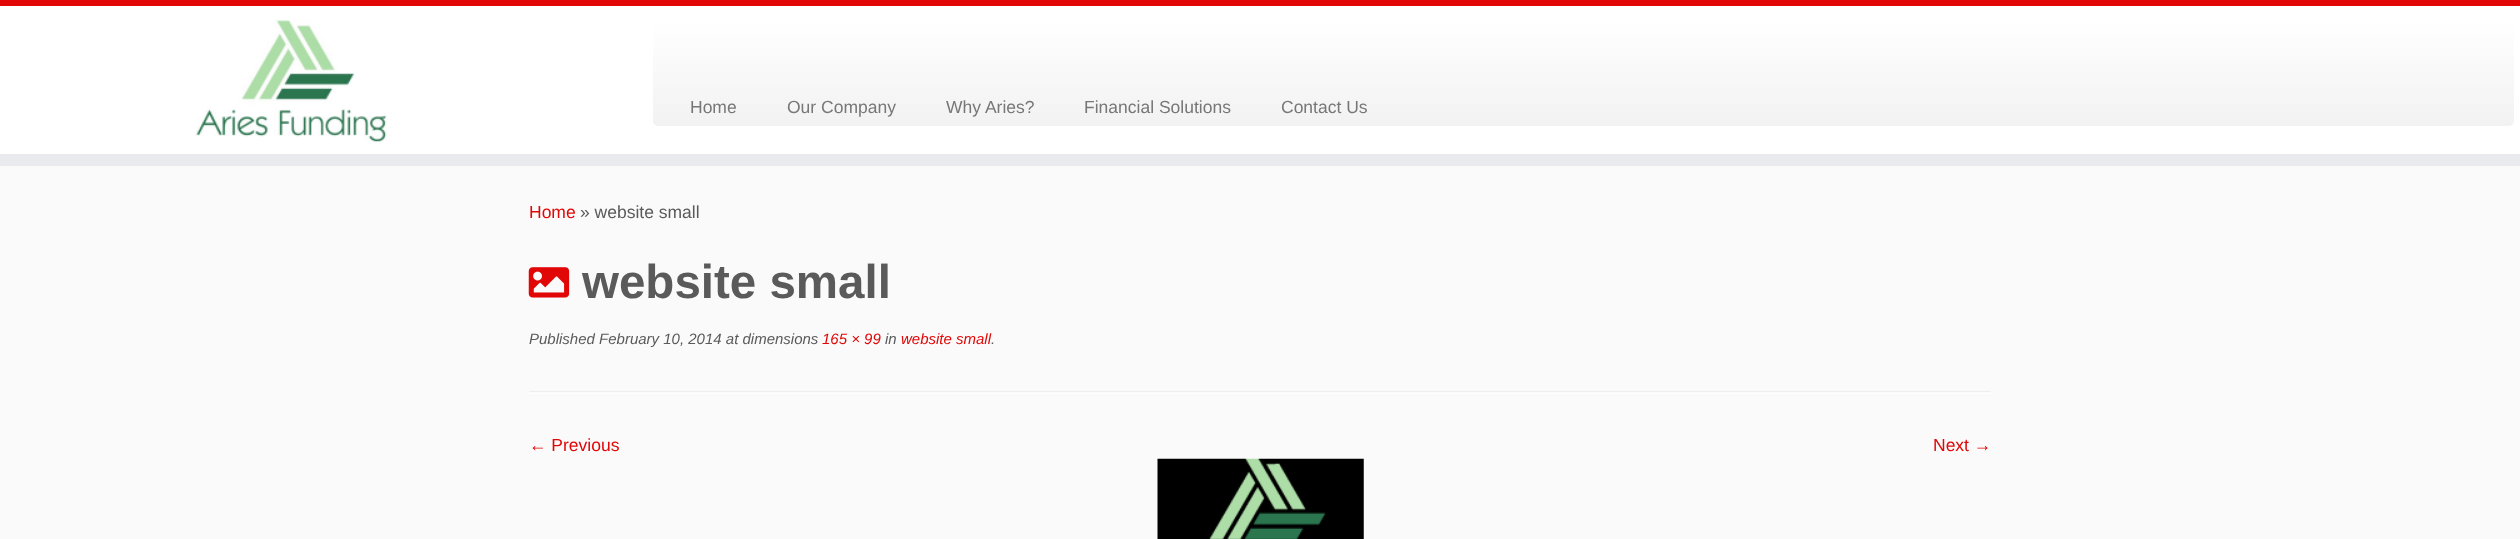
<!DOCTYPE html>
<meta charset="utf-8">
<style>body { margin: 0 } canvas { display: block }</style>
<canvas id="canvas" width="2520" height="539"></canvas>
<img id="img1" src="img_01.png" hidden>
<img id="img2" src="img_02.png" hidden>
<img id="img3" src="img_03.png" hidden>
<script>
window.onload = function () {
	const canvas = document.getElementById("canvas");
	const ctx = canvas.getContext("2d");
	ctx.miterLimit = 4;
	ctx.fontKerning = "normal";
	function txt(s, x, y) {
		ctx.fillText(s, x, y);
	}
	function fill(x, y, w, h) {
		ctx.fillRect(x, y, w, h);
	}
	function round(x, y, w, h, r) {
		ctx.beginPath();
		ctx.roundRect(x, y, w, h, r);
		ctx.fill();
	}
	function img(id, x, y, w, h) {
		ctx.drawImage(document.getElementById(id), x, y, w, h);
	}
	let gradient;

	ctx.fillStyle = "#FAFAFA";
	fill(0, 0, 2520, 539);
	ctx.fillStyle = "#FFFFFF";
	fill(0, 6, 2520, 148);
	ctx.fillStyle = "#E10707";
	fill(0, 0, 2520, 6);
	ctx.fillStyle = "#E9EAEE";
	fill(0, 154, 2520, 12);
	img("img1", 195, 20, 192, 122);
	gradient = ctx.createLinearGradient(1583, 21, 1583, 126);
	gradient.addColorStop(0, "#FFFFFF");
	gradient.addColorStop(1, "#F2F2F2");
	ctx.fillStyle = gradient;
	round(653, 21, 1861, 105, 5);
	img("img2", 528, 267, 42, 31);
	ctx.fillStyle = "#EEEEEE";
	fill(529, 391, 1462, 1);
	ctx.fillStyle = "#FFFFFF";
	fill(529, 393, 1462, 1);
	img("img3", 1157, 458, 207, 81);
	ctx.font = "17.5px Liberation Sans";
	ctx.fillStyle = "#777777";
	txt("Home", 690, 113);
	txt("Our Company", 787, 113);
	txt("Why Aries?", 946, 113);
	txt("Financial Solutions", 1084, 113);
	txt("Contact Us", 1281, 113);
	ctx.fillStyle = "#E10707";
	txt("Home", 529, 218);
	ctx.fillStyle = "#5A5A5A";
	txt("» website small", 580, 218);
	ctx.font = "bold 47.5px Liberation Sans";
	txt("website small", 582, 298);
	ctx.font = "italic 15px Liberation Sans";
	txt("Published February 10, 2014 at dimensions", 529, 344);
	ctx.fillStyle = "#E10707";
	txt("165 × 99", 822, 344);
	ctx.fillStyle = "#5A5A5A";
	txt("in", 885, 344);
	ctx.fillStyle = "#E10707";
	txt("website small", 901, 344);
	ctx.fillStyle = "#5A5A5A";
	txt(".", 991, 344);
	ctx.font = "17.5px Liberation Sans";
	ctx.fillStyle = "#E10707";
	txt("← Previous", 529, 451);
	txt("Next →", 1933, 451);
};
</script>
